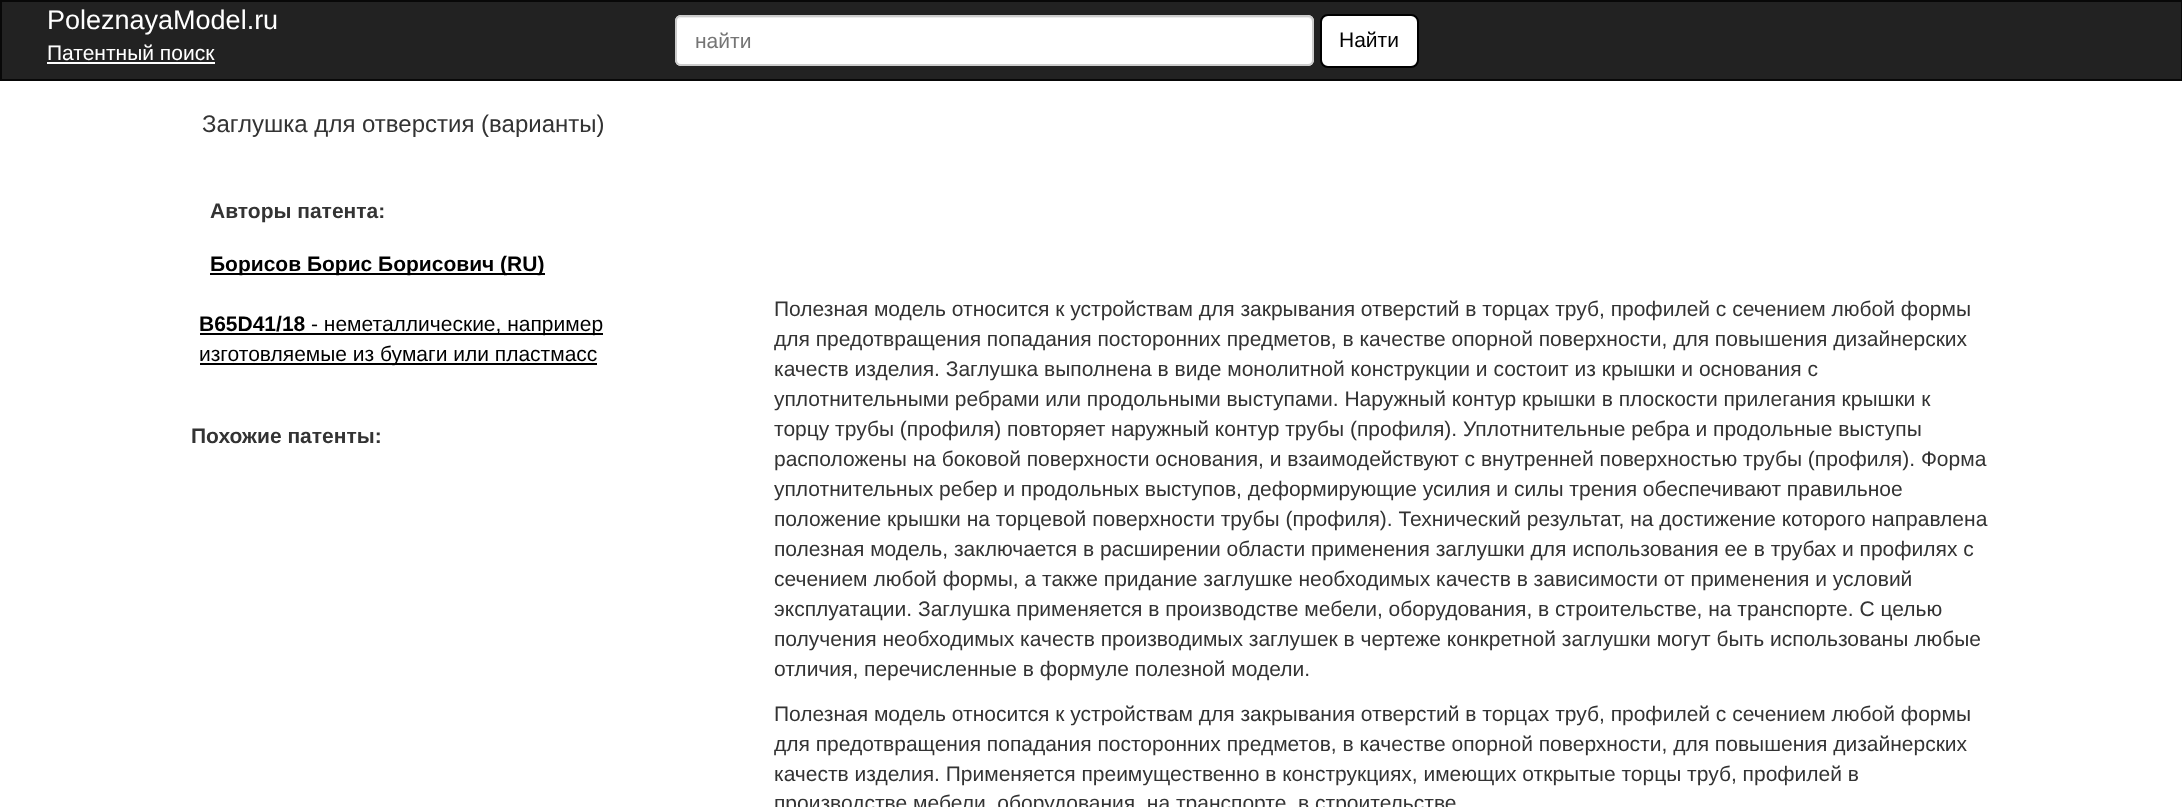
<!DOCTYPE html>
<meta charset="utf-8">
<style>body { margin: 0 } canvas { display: block }</style>
<canvas id="canvas" width="2182" height="807"></canvas>
<script>
window.onload = function () {
	const canvas = document.getElementById("canvas");
	const ctx = canvas.getContext("2d");
	ctx.miterLimit = 4;
	ctx.fontKerning = "normal";
	function txt(s, x, y) {
		ctx.fillText(s, x, y);
	}
	function fill(x, y, w, h) {
		ctx.fillRect(x, y, w, h);
	}
	function round(x, y, w, h, r) {
		ctx.beginPath();
		ctx.roundRect(x, y, w, h, r);
		ctx.fill();
	}

	ctx.fillStyle = "#FFFFFF";
	fill(0, 0, 2182, 807);
	ctx.fillStyle = "#222222";
	ctx.beginPath();
	ctx.rect(1, 1, 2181, 79);
	ctx.fill();
	ctx.strokeStyle = "#080808";
	ctx.lineWidth = 2;
	ctx.stroke();
	ctx.fillStyle = "#FFFFFF";
	fill(47, 62, 168, 2);
	round(675, 15, 639, 51, 6);
	ctx.fillStyle = "#ECECEC";
	ctx.beginPath();
	ctx.moveTo(681, 18);
	ctx.lineTo(1308, 18);
	ctx.bezierCurveTo(1310, 18, 1312, 20, 1312, 22);
	ctx.lineTo(1312, 63);
	ctx.bezierCurveTo(1313, 62, 1313, 61, 1313, 60);
	ctx.lineTo(1313, 22);
	ctx.bezierCurveTo(1313, 19, 1311, 17, 1308, 17);
	ctx.lineTo(682, 17);
	ctx.bezierCurveTo(680, 17, 679, 18, 678, 19);
	ctx.closePath();
	ctx.fill();
	ctx.beginPath();
	ctx.roundRect(676, 16, 637, 49, 5);
	ctx.strokeStyle = "#CCCCCC";
	ctx.stroke();
	ctx.fillStyle = "#FFFFFF";
	ctx.beginPath();
	ctx.roundRect(1321, 15, 97, 52, 7);
	ctx.fill();
	ctx.strokeStyle = "#000000";
	ctx.stroke();
	ctx.fillStyle = "#000000";
	fill(210, 273, 335, 2);
	fill(200, 333, 403, 2);
	fill(200, 363, 397, 2);
	ctx.font = "27px Liberation Sans";
	ctx.fillStyle = "#FFFFFF";
	txt("PoleznayaModel.ru", 47, 29);
	ctx.font = "21px Liberation Sans";
	txt("Патентный поиск", 47, 60);
	ctx.fillStyle = "#757575";
	txt("найти", 695, 48);
	ctx.fillStyle = "#000000";
	txt("Найти", 1339, 47);
	ctx.font = "24px Liberation Sans";
	ctx.fillStyle = "#333333";
	txt("Заглушка для отверстия (варианты)", 202, 132);
	ctx.font = "bold 21px Liberation Sans";
	txt("Авторы патента:", 210, 218);
	ctx.fillStyle = "#000000";
	txt("Борисов Борис Борисович (RU)", 210, 271);
	txt("B65D41/18", 199, 331);
	ctx.font = "21px Liberation Sans";
	txt("- неметаллические, например", 311, 331);
	txt("изготовляемые из бумаги или пластмасс", 199, 361);
	ctx.fillStyle = "#333333";
	txt("Полезная модель относится к устройствам для закрывания отверстий в торцах труб, профилей с сечением любой формы", 774, 316);
	txt("для предотвращения попадания посторонних предметов, в качестве опорной поверхности, для повышения дизайнерских", 774, 346);
	txt("качеств изделия. Заглушка выполнена в виде монолитной конструкции и состоит из крышки и основания с", 774, 376);
	txt("уплотнительными ребрами или продольными выступами. Наружный контур крышки в плоскости прилегания крышки к", 774, 406);
	txt("торцу трубы (профиля) повторяет наружный контур трубы (профиля). Уплотнительные ребра и продольные выступы", 774, 436);
	txt("расположены на боковой поверхности основания, и взаимодействуют с внутренней поверхностью трубы (профиля). Форма", 774, 466);
	txt("уплотнительных ребер и продольных выступов, деформирующие усилия и силы трения обеспечивают правильное", 774, 496);
	txt("положение крышки на торцевой поверхности трубы (профиля). Технический результат, на достижение которого направлена", 774, 526);
	txt("полезная модель, заключается в расширении области применения заглушки для использования ее в трубах и профилях с", 774, 556);
	txt("сечением любой формы, а также придание заглушке необходимых качеств в зависимости от применения и условий", 774, 586);
	txt("эксплуатации. Заглушка применяется в производстве мебели, оборудования, в строительстве, на транспорте. С целью", 774, 616);
	txt("получения необходимых качеств производимых заглушек в чертеже конкретной заглушки могут быть использованы любые", 774, 646);
	txt("отличия, перечисленные в формуле полезной модели.", 774, 676);
	txt("Полезная модель относится к устройствам для закрывания отверстий в торцах труб, профилей с сечением любой формы", 774, 721);
	txt("для предотвращения попадания посторонних предметов, в качестве опорной поверхности, для повышения дизайнерских", 774, 751);
	txt("качеств изделия. Применяется преимущественно в конструкциях, имеющих открытые торцы труб, профилей в", 774, 781);
	txt("производстве мебели, оборудования, на транспорте, в строительстве", 774, 810);
	ctx.font = "bold 21px Liberation Sans";
	txt("Похожие патенты:", 191, 443);
};
</script>
